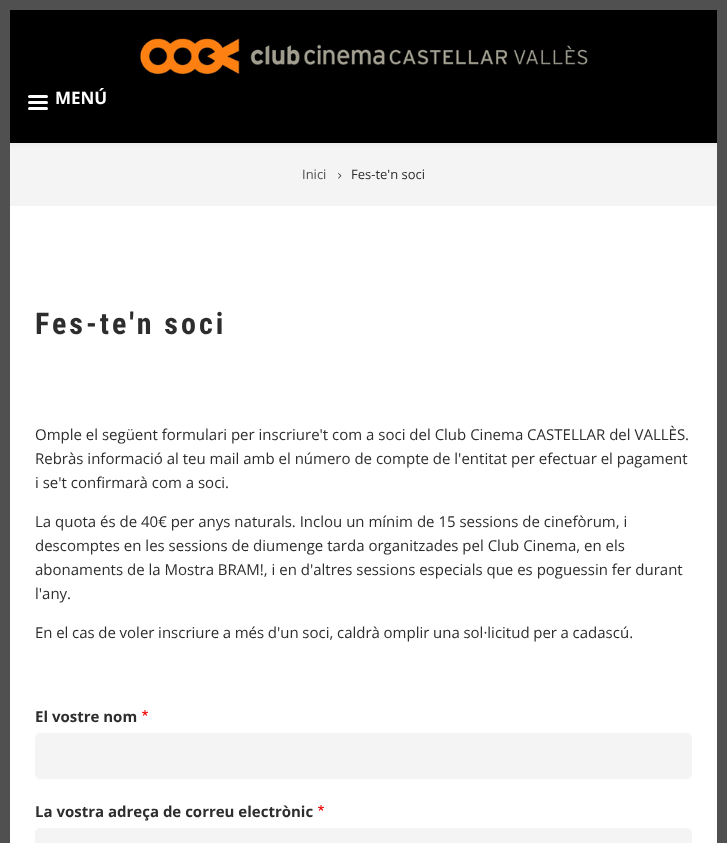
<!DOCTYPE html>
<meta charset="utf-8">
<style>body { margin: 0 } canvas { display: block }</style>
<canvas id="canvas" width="727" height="843"></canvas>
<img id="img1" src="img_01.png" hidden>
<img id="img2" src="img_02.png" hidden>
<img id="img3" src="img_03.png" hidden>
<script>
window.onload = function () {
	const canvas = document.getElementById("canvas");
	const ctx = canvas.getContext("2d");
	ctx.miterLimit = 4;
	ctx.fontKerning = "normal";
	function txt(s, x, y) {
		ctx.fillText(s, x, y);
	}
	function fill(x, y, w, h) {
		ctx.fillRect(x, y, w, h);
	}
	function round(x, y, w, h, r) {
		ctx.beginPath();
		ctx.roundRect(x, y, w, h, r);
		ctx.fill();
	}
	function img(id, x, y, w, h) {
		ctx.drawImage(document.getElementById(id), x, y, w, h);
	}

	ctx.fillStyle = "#FFFFFF";
	fill(0, 0, 727, 843);
	ctx.strokeStyle = "#505050";
	ctx.lineWidth = 10;
	ctx.strokeRect(5, 5, 717, 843);
	ctx.fillStyle = "#F4F4F4";
	fill(10, 143, 707, 63);
	ctx.save();
	ctx.beginPath();
	ctx.rect(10, 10, 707, 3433);
	ctx.clip();
	ctx.fillStyle = "rgba(0, 0, 0, 0.05)";
	ctx.filter = "blur(2.5px)";
	ctx.beginPath();
	ctx.rect(0, 11, 727, 133);
	ctx.fill();
	ctx.filter = "none";
	ctx.restore();
	ctx.fillStyle = "#000000";
	fill(10, 10, 707, 133);
	img("img1", 139, 37, 449, 38);
	ctx.fillStyle = "#FFFFFF";
	round(28, 95, 20, 3, 1.5);
	round(28, 101, 20, 3, 1.5);
	round(28, 107, 20, 3, 1.5);
	img("img2", 338, 173, 4, 6);
	img("img3", 142, 710, 6, 6);
	ctx.fillStyle = "#F4F4F4";
	ctx.beginPath();
	ctx.roundRect(35.5, 733.5, 656, 45, 4.5);
	ctx.fill();
	ctx.strokeStyle = "#F4F4F4";
	ctx.lineWidth = 1;
	ctx.stroke();
	img("img3", 318, 805, 6, 6);
	ctx.beginPath();
	ctx.roundRect(35.5, 828.5, 656, 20, 4.5);
	ctx.fill();
	ctx.stroke();
	ctx.font = "bold 17px Open Sans";
	ctx.fillStyle = "#FFFFFF";
	txt("MENÚ", 55, 104);
	ctx.font = "13px Open Sans";
	ctx.fillStyle = "#505050";
	txt("Inici", 302, 179);
	ctx.fillStyle = "#2D2D2D";
	txt("Fes-te'n soci", 351, 179);
	ctx.letterSpacing = "3px";
	ctx.font = "bold 30px Roboto Condensed";
	txt("Fes-te'n soci", 35, 334);
	ctx.letterSpacing = "0px";
	ctx.font = "15px Open Sans";
	txt("Omple el següent formulari per inscriure't com a soci del Club Cinema CASTELLAR del VALLÈS.", 35, 440);
	txt("Rebràs informació al teu mail amb el número de compte de l'entitat per efectuar el pagament", 35, 464);
	txt("i se't confirmarà com a soci.", 35, 488);
	txt("La quota és de 40€ per anys naturals. Inclou un mínim de 15 sessions de cinefòrum, i", 35, 527);
	txt("descomptes en les sessions de diumenge tarda organitzades pel Club Cinema, en els", 35, 551);
	txt("abonaments de la Mostra BRAM!, i en d'altres sessions especials que es poguessin fer durant", 35, 575);
	txt("l'any.", 35, 599);
	ctx.wordSpacing = "-0.25px";
	txt("En el cas de voler inscriure a més d'un soci, caldrà omplir una sol·licitud per a cadascú.", 35, 638);
	ctx.wordSpacing = "0px";
	ctx.font = "bold 15px Open Sans";
	txt("El vostre nom", 35, 722);
	txt("La vostra adreça de correu electrònic", 35, 817);
};
</script>
